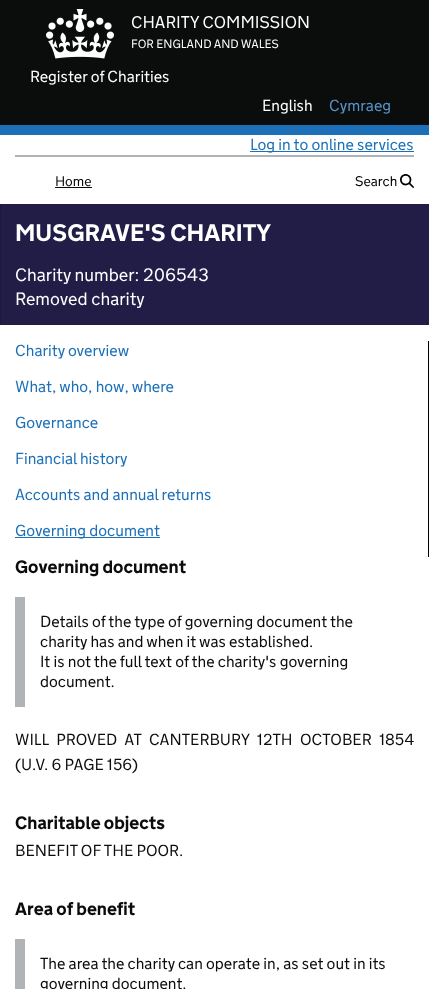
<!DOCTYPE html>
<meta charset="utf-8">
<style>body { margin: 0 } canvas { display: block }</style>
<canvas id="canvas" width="429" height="989"></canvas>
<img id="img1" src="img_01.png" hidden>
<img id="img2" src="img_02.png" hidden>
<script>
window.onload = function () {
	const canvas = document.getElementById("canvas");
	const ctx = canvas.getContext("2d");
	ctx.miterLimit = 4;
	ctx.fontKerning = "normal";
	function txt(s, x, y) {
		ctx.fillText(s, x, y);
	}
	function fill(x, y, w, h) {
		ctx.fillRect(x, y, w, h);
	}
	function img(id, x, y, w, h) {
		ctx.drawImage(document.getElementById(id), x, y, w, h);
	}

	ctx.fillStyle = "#FFFFFF";
	fill(0, 0, 429, 989);
	ctx.fillStyle = "#0B0C0C";
	fill(0, 0, 429, 125);
	ctx.fillStyle = "#1D70B8";
	fill(0, 125, 429, 10);
	img("img1", 46, 9, 68, 50);
	ctx.fillStyle = "#B1B4B6";
	fill(15, 155, 399, 2);
	ctx.fillStyle = "#1D70B8";
	fill(250, 151, 164, 1);
	ctx.fillStyle = "#0B0C0C";
	fill(55, 187, 37, 1);
	img("img2", 400, 174, 14, 14);
	ctx.fillStyle = "#201547";
	fill(0, 204, 1, 121);
	ctx.fillStyle = "#211D47";
	fill(1, 204, 428, 121);
	ctx.fillStyle = "#000000";
	fill(428, 341, 1, 216);
	ctx.fillStyle = "#1D70B8";
	fill(15, 537, 145, 1);
	ctx.fillStyle = "#B1B4B6";
	fill(15, 597, 10, 110);
	fill(15, 939, 10, 50);
	ctx.font = "300 17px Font";
	ctx.fillStyle = "#FFFFFF";
	txt("CHARITY COMMISSION", 131, 28);
	ctx.font = "300 12px Font";
	txt("FOR ENGLAND AND WALES", 131, 48);
	ctx.font = "300 16px Font";
	txt("Register of Charities", 30, 82);
	txt("English", 262, 111);
	ctx.fillStyle = "#5694CA";
	txt("Cymraeg", 329, 111);
	ctx.fillStyle = "#1D70B8";
	txt("Log in to online services", 250, 150);
	ctx.font = "300 14px Font";
	ctx.fillStyle = "#0B0C0C";
	txt("Home", 55, 186);
	ctx.fillStyle = "#000000";
	txt("Search", 355, 186);
	ctx.font = "bold 24px Font";
	ctx.fillStyle = "#FFFFFF";
	txt("MUSGRAVE'S CHARITY", 15, 241);
	ctx.font = "300 18px Font";
	txt("Charity number: 206543", 15, 281);
	txt("Removed charity", 15, 305);
	ctx.font = "300 16px Font";
	ctx.fillStyle = "#1D70B8";
	txt("Charity overview", 15, 356);
	txt("What, who, how, where", 15, 392);
	txt("Governance", 15, 428);
	txt("Financial history", 15, 464);
	txt("Accounts and annual returns", 15, 500);
	txt("Governing document", 15, 536);
	ctx.font = "bold 18px Font";
	ctx.fillStyle = "#0B0C0C";
	txt("Governing document", 15, 573);
	ctx.font = "300 16px Font";
	txt("Details of the type of governing document the", 40, 627);
	txt("charity has and when it was established.", 40, 647);
	txt("It is not the full text of the charity's governing", 40, 667);
	txt("document.", 40, 687);
	ctx.wordSpacing = "4.25px";
	txt("WILL PROVED AT CANTERBURY 12TH OCTOBER 1854", 15, 745);
	ctx.wordSpacing = "0px";
	txt("(U.V. 6 PAGE 156)", 15, 770);
	ctx.font = "bold 18px Font";
	txt("Charitable objects", 15, 829);
	ctx.font = "300 16px Font";
	txt("BENEFIT OF THE POOR.", 15, 856);
	ctx.font = "bold 18px Font";
	txt("Area of benefit", 15, 915);
	ctx.font = "300 16px Font";
	txt("The area the charity can operate in, as set out in its", 40, 969);
	txt("governing document.", 40, 989);
};
</script>
